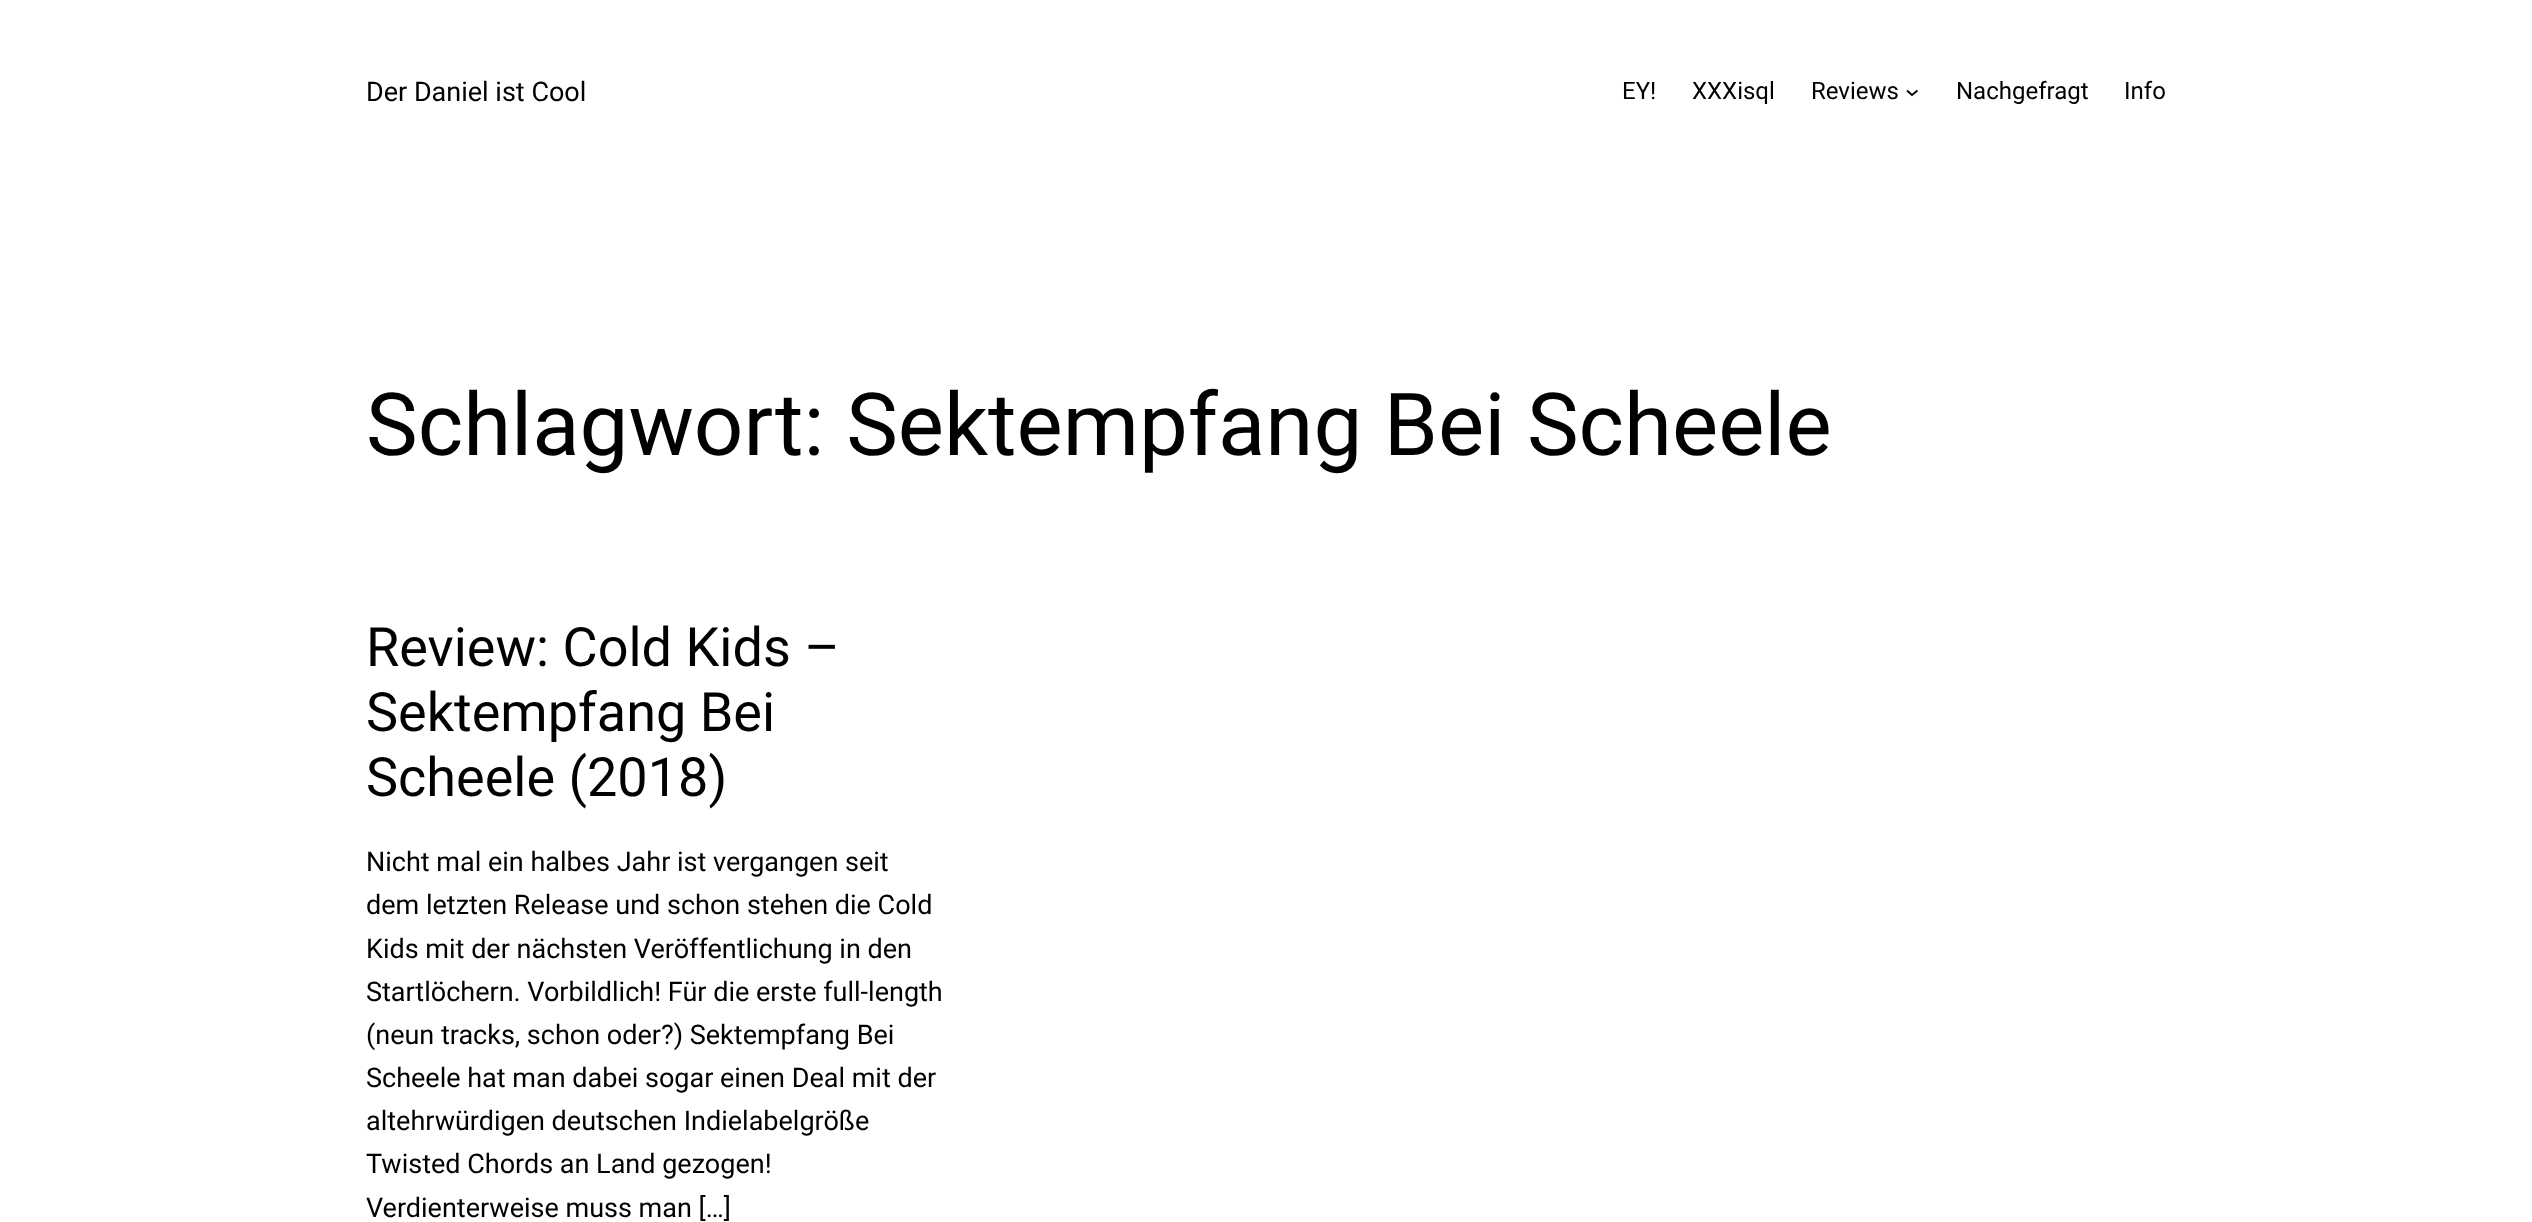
<!DOCTYPE html>
<meta charset="utf-8">
<style>body { margin: 0 } canvas { display: block }</style>
<canvas id="canvas" width="2532" height="1222"></canvas>
<script>
window.onload = function () {
	const canvas = document.getElementById("canvas");
	const ctx = canvas.getContext("2d");
	ctx.miterLimit = 4;
	ctx.fontKerning = "normal";
	function txt(s, x, y) {
		ctx.fillText(s, x, y);
	}
	function fill(x, y, w, h) {
		ctx.fillRect(x, y, w, h);
	}

	ctx.fillStyle = "#FFFFFF";
	fill(0, 0, 2532, 1222);
	ctx.beginPath();
	ctx.moveTo(1907, 90.5);
	ctx.lineTo(1912, 95);
	ctx.lineTo(1917.5, 90.5);
	ctx.strokeStyle = "#000000";
	ctx.lineWidth = 1.8;
	ctx.stroke();
	ctx.font = "27px Roboto";
	ctx.fillStyle = "#000000";
	txt("Der Daniel ist Cool", 366, 101);
	ctx.font = "24px Roboto";
	txt("EY!", 1622, 99);
	txt("XXXisql", 1692, 99);
	txt("Reviews", 1811, 99);
	txt("Nachgefragt", 1956, 99);
	txt("Info", 2124, 99);
	ctx.font = "87px Roboto";
	txt("Schlagwort: Sektempfang Bei Scheele", 366, 455);
	ctx.font = "54px Roboto";
	txt("Review: Cold Kids –", 366, 666);
	txt("Sektempfang Bei", 366, 731);
	txt("Scheele (2018)", 366, 796);
	ctx.font = "27px Roboto";
	txt("Nicht mal ein halbes Jahr ist vergangen seit", 366, 871);
	txt("dem letzten Release und schon stehen die Cold", 366, 914);
	txt("Kids mit der nächsten Veröffentlichung in den", 366, 958);
	txt("Startlöchern. Vorbildlich! Für die erste full-length", 366, 1001);
	txt("(neun tracks, schon oder?) Sektempfang Bei", 366, 1044);
	txt("Scheele hat man dabei sogar einen Deal mit der", 366, 1087);
	txt("altehrwürdigen deutschen Indielabelgröße", 366, 1130);
	txt("Twisted Chords an Land gezogen!", 366, 1173);
	txt("Verdienterweise muss man […]", 366, 1217);
};
</script>
